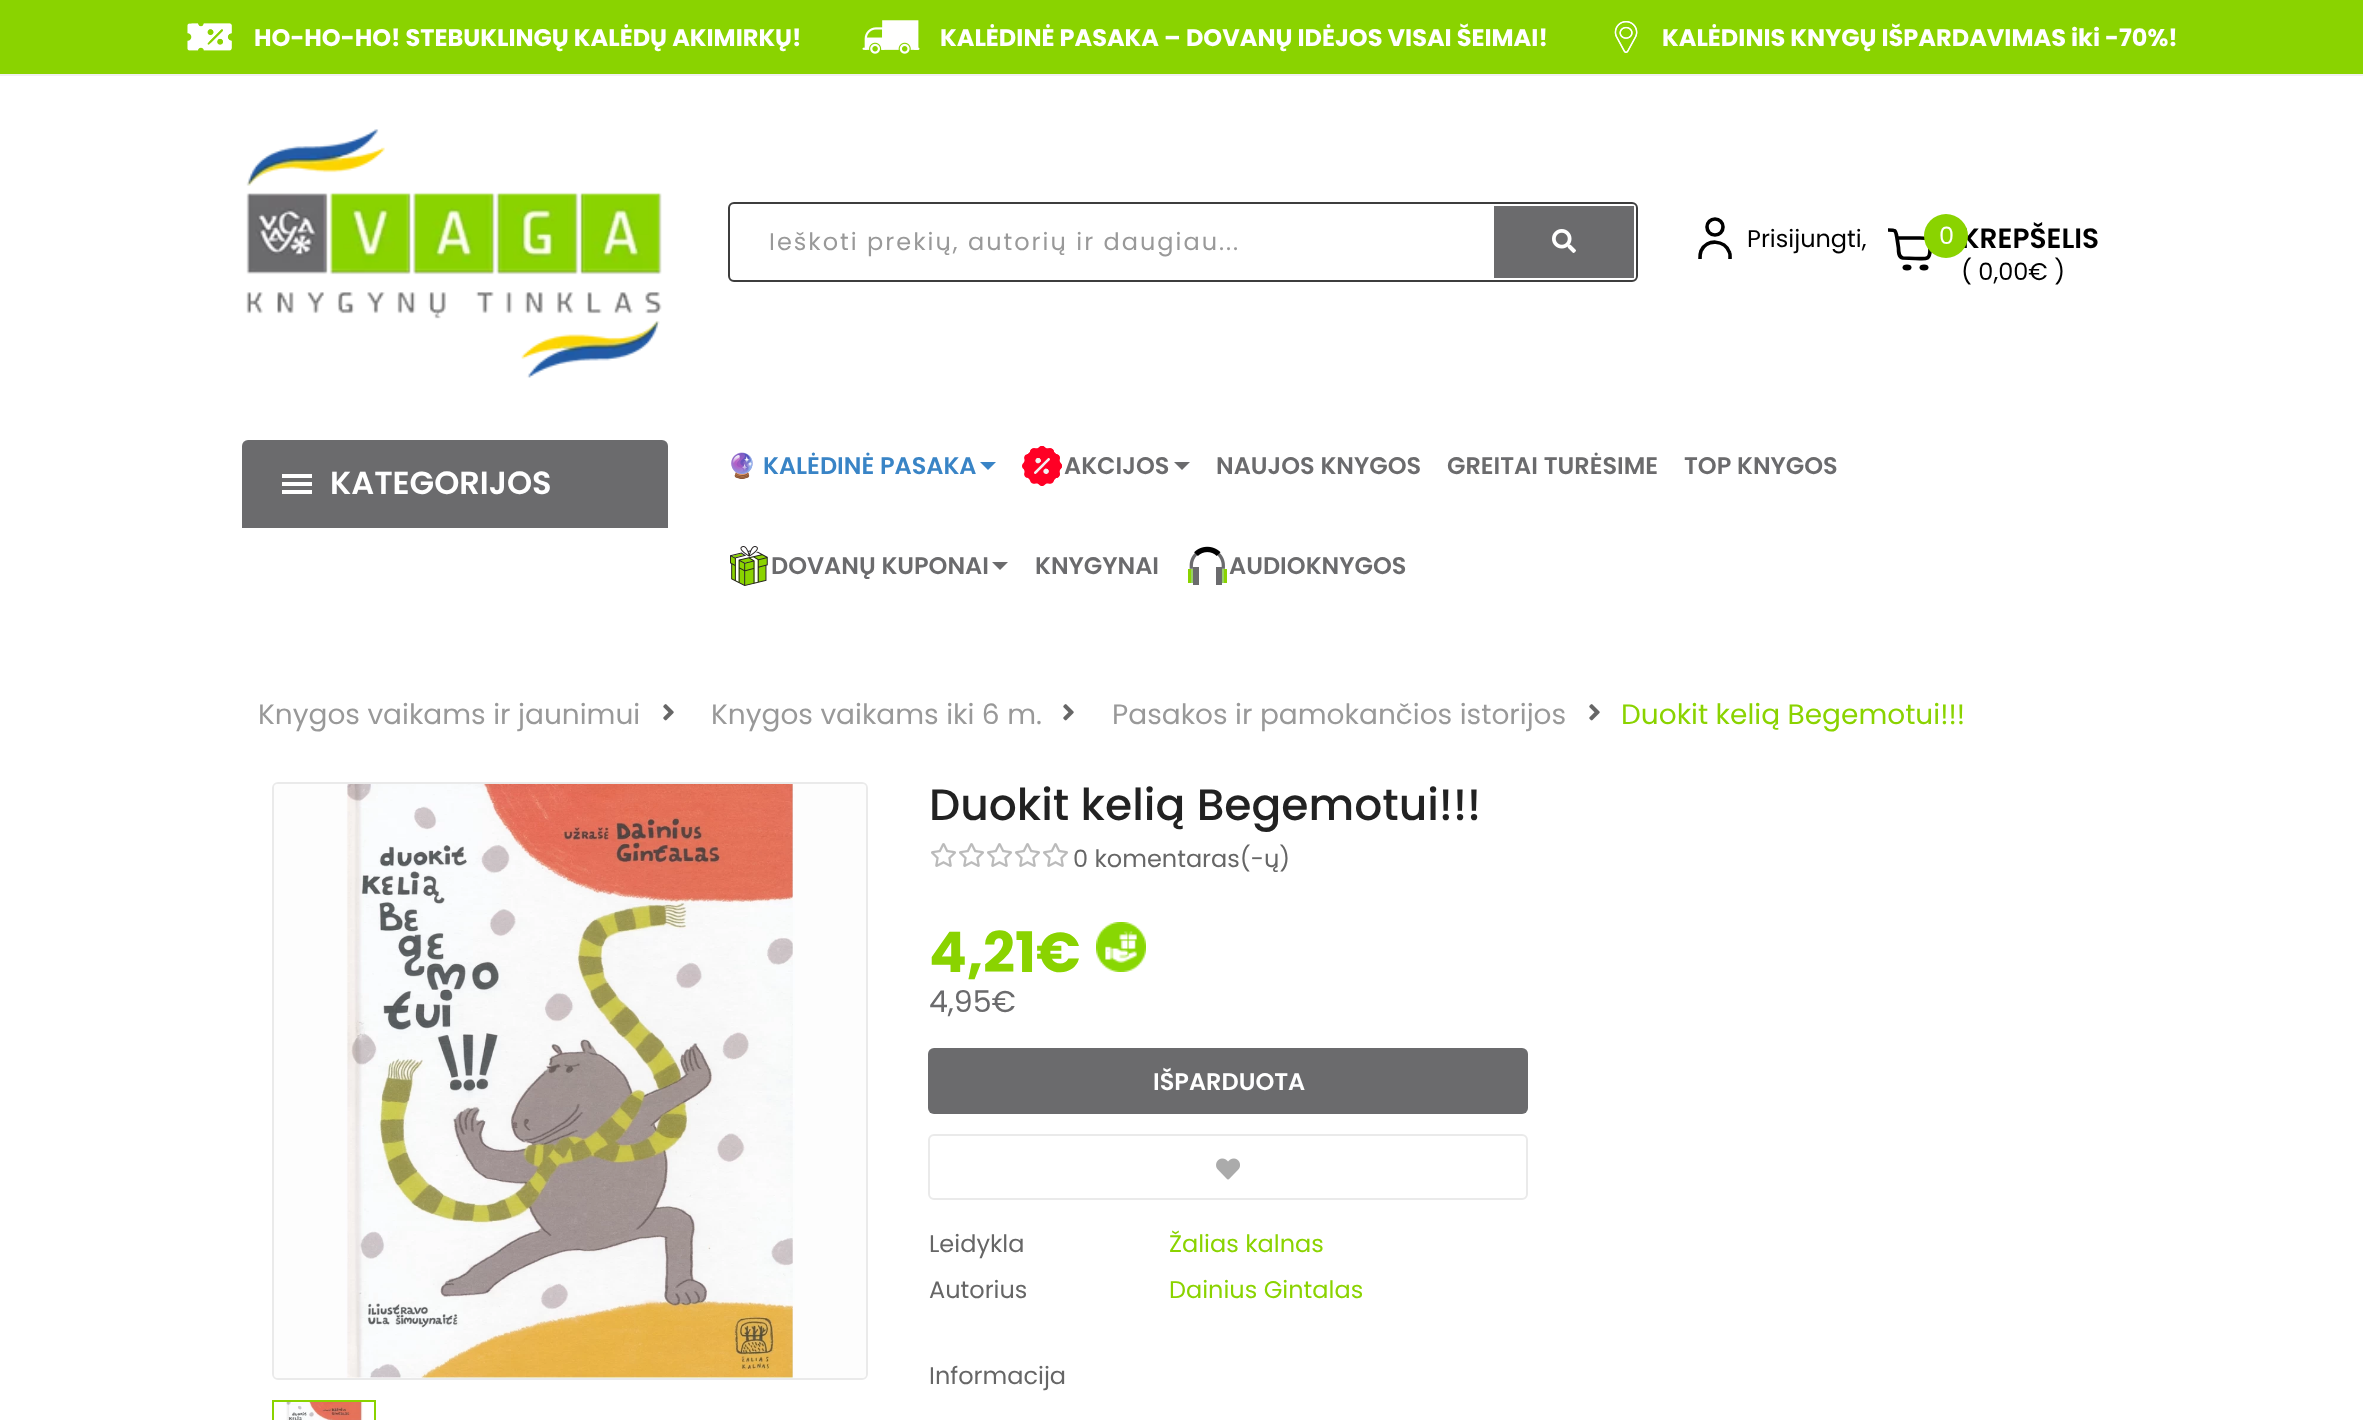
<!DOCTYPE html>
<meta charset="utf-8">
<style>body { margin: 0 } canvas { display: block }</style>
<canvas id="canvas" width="2363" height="1420"></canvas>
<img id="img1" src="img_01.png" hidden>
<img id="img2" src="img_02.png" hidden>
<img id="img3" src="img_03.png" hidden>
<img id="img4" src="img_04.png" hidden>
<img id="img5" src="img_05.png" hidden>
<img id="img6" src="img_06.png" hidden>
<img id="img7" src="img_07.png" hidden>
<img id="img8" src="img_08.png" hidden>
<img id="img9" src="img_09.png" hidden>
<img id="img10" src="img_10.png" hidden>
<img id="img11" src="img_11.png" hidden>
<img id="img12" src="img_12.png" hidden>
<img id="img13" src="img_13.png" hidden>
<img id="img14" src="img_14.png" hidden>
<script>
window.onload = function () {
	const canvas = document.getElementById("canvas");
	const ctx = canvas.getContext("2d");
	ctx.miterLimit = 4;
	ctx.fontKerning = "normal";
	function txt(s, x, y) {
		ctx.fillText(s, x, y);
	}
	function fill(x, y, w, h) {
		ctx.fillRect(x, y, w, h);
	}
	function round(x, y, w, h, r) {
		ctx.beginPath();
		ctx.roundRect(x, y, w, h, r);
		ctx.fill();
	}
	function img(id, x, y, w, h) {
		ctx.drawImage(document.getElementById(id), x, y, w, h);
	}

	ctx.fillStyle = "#FFFFFF";
	fill(0, 0, 2363, 1420);
	ctx.fillStyle = "#F1F1F1";
	fill(0, 74, 2363, 2);
	ctx.fillStyle = "#8AD300";
	fill(0, 0, 2363, 74);
	img("img1", 187, 23, 45, 28);
	img("img2", 862, 20, 58, 34);
	img("img3", 1614, 21, 24, 32);
	img("img4", 246, 129, 416, 249);
	ctx.beginPath();
	ctx.roundRect(729, 203, 908, 78, 5);
	ctx.strokeStyle = "#3D3D3D";
	ctx.lineWidth = 2;
	ctx.stroke();
	ctx.fillStyle = "#6B6B6D";
	fill(1494, 206, 140, 72);
	img("img5", 1552, 229, 24, 24);
	ctx.beginPath();
	ctx.moveTo(1700, 259);
	ctx.bezierCurveTo(1700, 256, 1700, 253.5, 1701, 251);
	ctx.bezierCurveTo(1706.5, 238.5, 1725, 239.5, 1729.5, 252.5);
	ctx.bezierCurveTo(1730.5, 254.5, 1730, 257, 1730, 259);
	ctx.strokeStyle = "#000000";
	ctx.lineWidth = 3.6;
	ctx.stroke();
	ctx.beginPath();
	ctx.arc(1715, 227, 8, 0, Math.PI * 2);
	ctx.stroke();
	ctx.beginPath();
	ctx.moveTo(1888, 230);
	ctx.bezierCurveTo(1896, 230, 1895.5, 230, 1897, 238);
	ctx.moveTo(1897, 238);
	ctx.lineTo(1920, 238);
	ctx.bezierCurveTo(1931, 238, 1930, 240, 1930, 250);
	ctx.bezierCurveTo(1930, 261, 1925, 258.5, 1915, 258.5);
	ctx.lineTo(1903, 258);
	ctx.bezierCurveTo(1898.5, 257, 1898.5, 252, 1898.5, 248);
	ctx.closePath();
	ctx.lineWidth = 3.7;
	ctx.stroke();
	ctx.fillStyle = "#000000";
	ctx.beginPath();
	ctx.ellipse(1907, 267.5, 4.5, 3, 0, 0, Math.PI * 2);
	ctx.fill();
	ctx.beginPath();
	ctx.ellipse(1924, 267.5, 4.5, 3, 0, 0, Math.PI * 2);
	ctx.fill();
	ctx.fillStyle = "#6B6B6D";
	ctx.beginPath();
	ctx.roundRect(242, 440, 426, 88, [6, 6, 0, 0]);
	ctx.fill();
	ctx.fillStyle = "#FFFFFF";
	fill(282, 474, 30, 4);
	fill(282, 482, 30, 4);
	fill(282, 490, 30, 4);
	ctx.fillStyle = "#3984C6";
	ctx.beginPath();
	ctx.moveTo(980, 462);
	ctx.lineTo(996, 462);
	ctx.lineTo(988, 470);
	ctx.closePath();
	ctx.fill();
	img("img6", 1022, 446, 40, 40);
	ctx.fillStyle = "#6B6B6D";
	ctx.beginPath();
	ctx.moveTo(1174, 462);
	ctx.lineTo(1190, 462);
	ctx.lineTo(1182, 470);
	ctx.closePath();
	ctx.fill();
	img("img7", 730, 546, 38, 40);
	ctx.beginPath();
	ctx.moveTo(992, 562);
	ctx.lineTo(1008, 562);
	ctx.lineTo(1000, 570);
	ctx.closePath();
	ctx.fill();
	img("img8", 1188, 546, 39, 39);
	img("img9", 663, 704, 11, 17);
	img("img9", 1063, 704, 11, 17);
	img("img9", 1589, 704, 11, 17);
	ctx.beginPath();
	ctx.roundRect(273, 783, 594, 596, 5);
	ctx.strokeStyle = "#EAEAEA";
	ctx.lineWidth = 2;
	ctx.stroke();
	img("img10", 274, 784, 592, 594);
	ctx.strokeStyle = "#8AD300";
	ctx.strokeRect(273, 1401, 102, 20);
	img("img11", 286, 1402, 77, 18);
	img("img12", 931, 843, 25, 24);
	img("img12", 959, 843, 25, 24);
	img("img12", 987, 843, 25, 24);
	img("img12", 1015, 843, 25, 24);
	img("img12", 1043, 843, 25, 24);
	img("img13", 1096, 922, 50, 50);
	round(928, 1048, 600, 66, 6);
	ctx.beginPath();
	ctx.roundRect(929, 1135, 598, 64, 5);
	ctx.strokeStyle = "#EAEAEA";
	ctx.stroke();
	img("img14", 1216, 1158, 24, 22);
	ctx.font = "bold 24px Poppins";
	ctx.fillStyle = "#FFFFFF";
	txt("HO-HO-HO! STEBUKLINGŲ KALĖDŲ AKIMIRKŲ!", 254, 46);
	txt("KALĖDINĖ PASAKA – DOVANŲ IDĖJOS VISAI ŠEIMAI!", 940, 46);
	txt("KALĖDINIS KNYGŲ IŠPARDAVIMAS iki -70%!", 1662, 46);
	ctx.letterSpacing = "2px";
	ctx.font = "24px Poppins";
	ctx.fillStyle = "#999999";
	txt("Ieškoti prekių, autorių ir daugiau...", 769, 250);
	ctx.letterSpacing = "0px";
	ctx.fillStyle = "#000000";
	txt("Prisijungti,", 1747, 247);
	ctx.font = "600 28px Poppins";
	txt("KREPŠELIS", 1961, 248);
	ctx.font = "24px Poppins";
	txt("( 0,00€ )", 1961, 280);
	ctx.fillStyle = "#8AD300";
	ctx.beginPath();
	ctx.arc(1946, 236, 22, 0, Math.PI * 2);
	ctx.fill();
	ctx.fillStyle = "#FFFFFF";
	txt("0", 1939, 244);
	ctx.font = "600 32px Poppins";
	txt("KATEGORIJOS", 330, 494);
	ctx.font = "bold 24px Noto Color Emoji";
	ctx.fillStyle = "#3984C6";
	txt("🔮", 727, 474);
	ctx.font = "600 24px Poppins";
	txt("KALĖDINĖ PASAKA", 763, 474);
	ctx.fillStyle = "#6B6B6D";
	txt("AKCIJOS", 1064, 474);
	txt("NAUJOS KNYGOS", 1216, 474);
	txt("GREITAI TURĖSIME", 1447, 474);
	txt("TOP KNYGOS", 1684, 474);
	txt("DOVANŲ KUPONAI", 771, 574);
	txt("KNYGYNAI", 1035, 574);
	txt("AUDIOKNYGOS", 1229, 574);
	ctx.font = "28px Poppins";
	ctx.fillStyle = "#999999";
	txt("Knygos vaikams ir jaunimui", 258, 724);
	txt("Knygos vaikams iki 6 m.", 711, 724);
	txt("Pasakos ir pamokančios istorijos", 1112, 724);
	ctx.fillStyle = "#8AD300";
	txt("Duokit kelią Begemotui!!!", 1621, 724);
	ctx.font = "500 44px Poppins";
	ctx.fillStyle = "#222222";
	txt("Duokit kelią Begemotui!!!", 929, 820);
	ctx.font = "24px Poppins";
	ctx.fillStyle = "#666666";
	txt("0 komentaras(-ų)", 1073, 867);
	ctx.font = "bold 56px Poppins";
	ctx.fillStyle = "#8AD300";
	txt("4,21€", 929, 972);
	ctx.font = "30px Poppins";
	ctx.fillStyle = "#6B6B6D";
	txt("4,95€", 929, 1012);
	ctx.font = "600 24px Poppins";
	ctx.fillStyle = "#FFFFFF";
	txt("IŠPARDUOTA", 1153, 1090);
	ctx.font = "24px Poppins";
	ctx.fillStyle = "#666666";
	txt("Leidykla", 929, 1252);
	ctx.fillStyle = "#8AD300";
	txt("Žalias kalnas", 1169, 1252);
	ctx.fillStyle = "#666666";
	txt("Autorius", 929, 1298);
	ctx.fillStyle = "#8AD300";
	txt("Dainius Gintalas", 1169, 1298);
	ctx.fillStyle = "#666666";
	txt("Informacija", 929, 1384);
};
</script>
